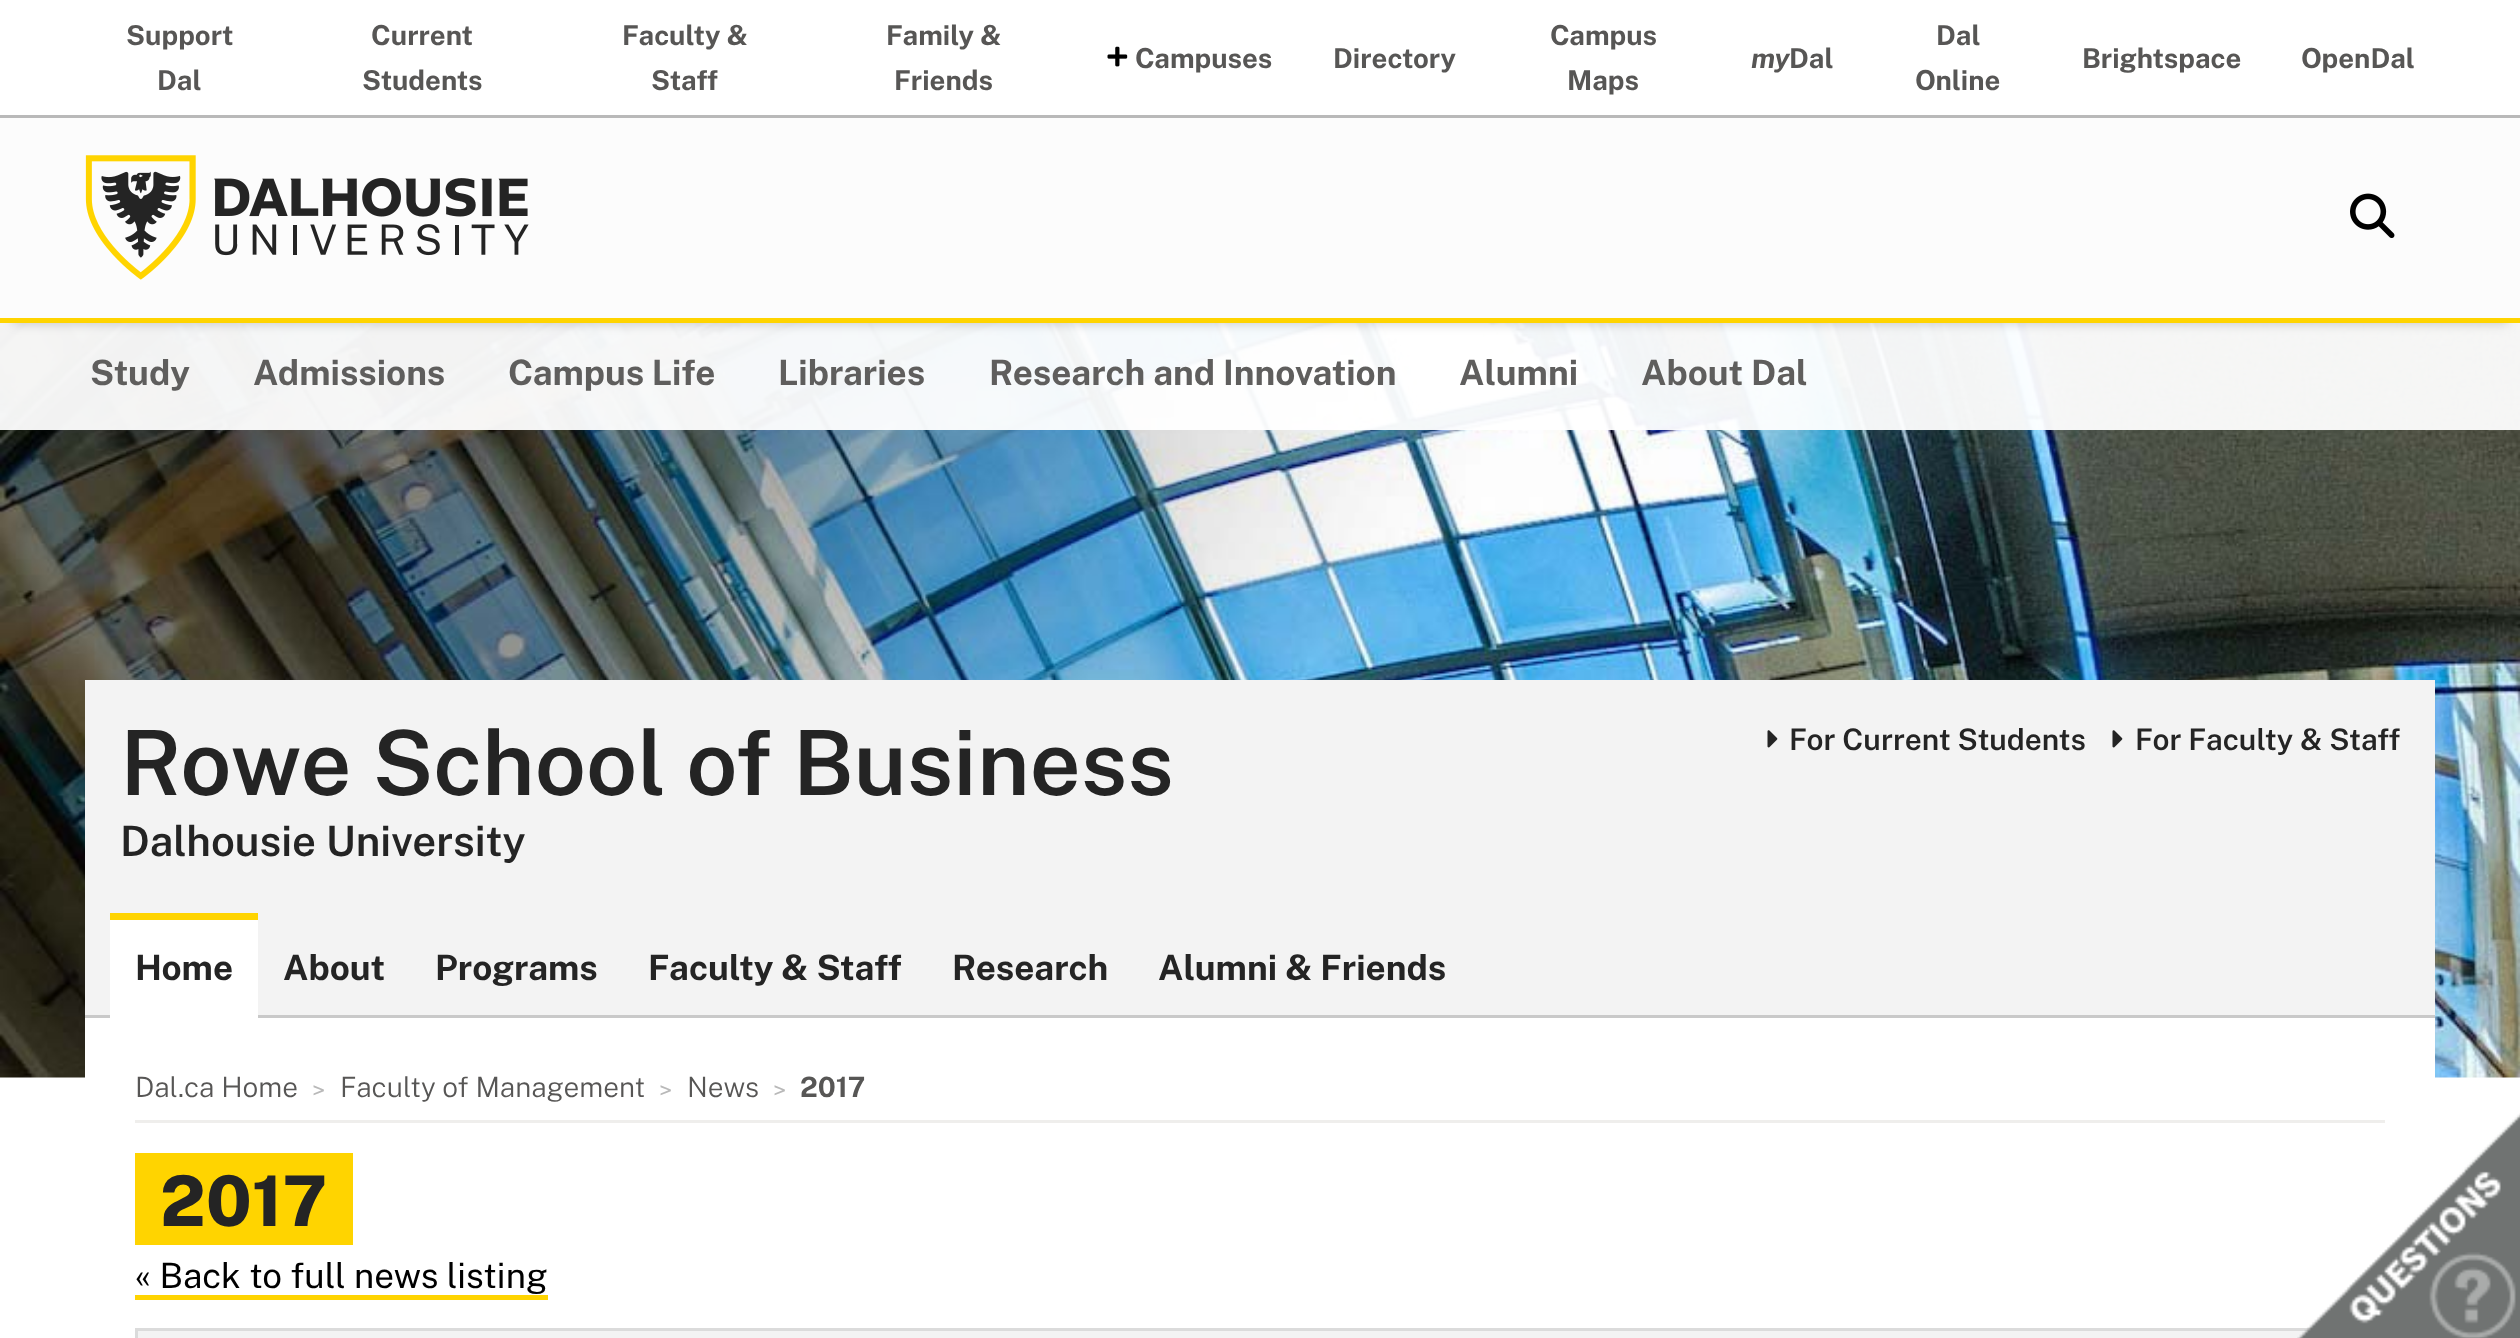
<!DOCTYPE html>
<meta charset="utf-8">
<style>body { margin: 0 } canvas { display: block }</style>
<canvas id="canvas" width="2520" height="1338"></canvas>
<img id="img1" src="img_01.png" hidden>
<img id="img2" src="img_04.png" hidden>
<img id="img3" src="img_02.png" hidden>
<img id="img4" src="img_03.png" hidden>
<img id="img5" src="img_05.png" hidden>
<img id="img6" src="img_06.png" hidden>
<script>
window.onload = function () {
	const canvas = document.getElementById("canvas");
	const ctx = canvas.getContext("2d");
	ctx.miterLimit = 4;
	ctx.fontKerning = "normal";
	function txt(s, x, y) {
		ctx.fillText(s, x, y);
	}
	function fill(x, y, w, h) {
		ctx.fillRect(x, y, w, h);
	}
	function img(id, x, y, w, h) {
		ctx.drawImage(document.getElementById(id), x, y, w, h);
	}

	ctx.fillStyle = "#FFFFFF";
	fill(0, 0, 2520, 1338);
	ctx.fillStyle = "#B9B9B9";
	fill(0, 115, 2520, 3);
	img("img1", 1107, 46, 21, 21);
	img("img2", 0, 323, 2520, 755);
	ctx.fillStyle = "rgba(255, 255, 255, 0.95)";
	fill(0, 323, 2520, 107);
	ctx.fillStyle = "rgba(0, 0, 0, 0.2)";
	ctx.filter = "blur(6px)";
	ctx.beginPath();
	ctx.rect(13, 143, 2495, 180);
	ctx.fill();
	ctx.filter = "none";
	ctx.fillStyle = "#FCFCFC";
	fill(0, 118, 2520, 200);
	ctx.fillStyle = "#FFD400";
	fill(0, 318, 2520, 5);
	img("img3", 85, 155, 444, 125);
	img("img4", 2350, 193, 45, 45);
	ctx.fillStyle = "#F3F3F3";
	fill(85, 680, 2350, 335);
	ctx.fillStyle = "#FFFFFF";
	fill(85, 1018, 2350, 60);
	img("img5", 1767, 730, 11, 18);
	img("img5", 2112, 730, 11, 18);
	ctx.fillStyle = "#C9C9C9";
	fill(85, 1015, 2350, 3);
	ctx.fillStyle = "#FFD400";
	fill(110, 913, 148, 7);
	ctx.fillStyle = "#FFFFFF";
	fill(110, 920, 148, 98);
	ctx.fillStyle = "#EFEEEC";
	fill(135, 1120, 2250, 3);
	ctx.fillStyle = "#FFD400";
	fill(135, 1153, 218, 92);
	fill(135, 1295, 413, 5);
	ctx.fillStyle = "#F3F3F3";
	fill(138, 1331, 2171, 7);
	ctx.strokeStyle = "#DBDBDB";
	ctx.lineWidth = 3;
	ctx.strokeRect(136.5, 1329.5, 2247, 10);
	img("img6", 2297, 1113, 223, 225);
	ctx.font = "bold 27.5px Public Sans";
	ctx.fillStyle = "#575655";
	txt("Support", 126, 45);
	txt("Dal", 157, 90);
	txt("Current", 371, 45);
	txt("Students", 362, 90);
	txt("Faculty &", 622, 45);
	txt("Staff", 651, 90);
	txt("Family &", 886, 45);
	txt("Friends", 894, 90);
	txt("Campuses", 1135, 68);
	txt("Directory", 1333, 68);
	txt("Campus", 1550, 45);
	txt("Maps", 1567, 90);
	ctx.font = "italic bold 27.5px Public Sans";
	txt("my", 1751, 68);
	ctx.font = "bold 27.5px Public Sans";
	txt("Dal", 1789, 68);
	txt("Dal", 1936, 45);
	txt("Online", 1915, 90);
	txt("Brightspace", 2082, 68);
	txt("OpenDal", 2301, 68);
	ctx.font = "bold 35px Public Sans";
	ctx.fillStyle = "#5F5E5D";
	txt("Study", 90, 385);
	txt("Admissions", 253, 385);
	txt("Campus Life", 508, 385);
	txt("Libraries", 778, 385);
	txt("Research and Innovation", 989, 385);
	txt("Alumni", 1459, 385);
	txt("About Dal", 1641, 385);
	ctx.font = "600 90px Public Sans";
	ctx.fillStyle = "#242424";
	txt("Rowe School of Business", 120, 795);
	ctx.font = "600 29.75px Public Sans";
	txt("For Current Students", 1789, 750);
	txt("For Faculty & Staff", 2135, 750);
	ctx.font = "600 42px Public Sans";
	txt("Dalhousie University", 120, 856);
	ctx.font = "bold 35px Public Sans";
	txt("Home", 135, 980);
	txt("About", 283, 980);
	txt("Programs", 435, 980);
	txt("Faculty & Staff", 648, 980);
	txt("Research", 952, 980);
	txt("Alumni & Friends", 1158, 980);
	ctx.font = "300 28px Public Sans";
	ctx.fillStyle = "#575655";
	txt("Dal.ca Home", 135, 1097);
	ctx.font = "300 25px Public Sans";
	ctx.fillStyle = "#B9B9B9";
	txt(">", 312, 1099);
	ctx.font = "300 28px Public Sans";
	ctx.fillStyle = "#575655";
	txt("Faculty of Management", 340, 1097);
	ctx.font = "300 25px Public Sans";
	ctx.fillStyle = "#B9B9B9";
	txt(">", 659, 1099);
	ctx.font = "300 28px Public Sans";
	ctx.fillStyle = "#575655";
	txt("News", 687, 1097);
	ctx.font = "300 25px Public Sans";
	ctx.fillStyle = "#B9B9B9";
	txt(">", 773, 1099);
	ctx.font = "bold 28px Public Sans";
	ctx.fillStyle = "#575655";
	txt("2017", 800, 1097);
	ctx.font = "800 70px Public Sans";
	ctx.fillStyle = "#242424";
	txt("2017", 160, 1226);
	ctx.font = "35px Public Sans";
	ctx.fillStyle = "#000000";
	txt("« Back to full news listing", 135, 1288);
};
</script>
